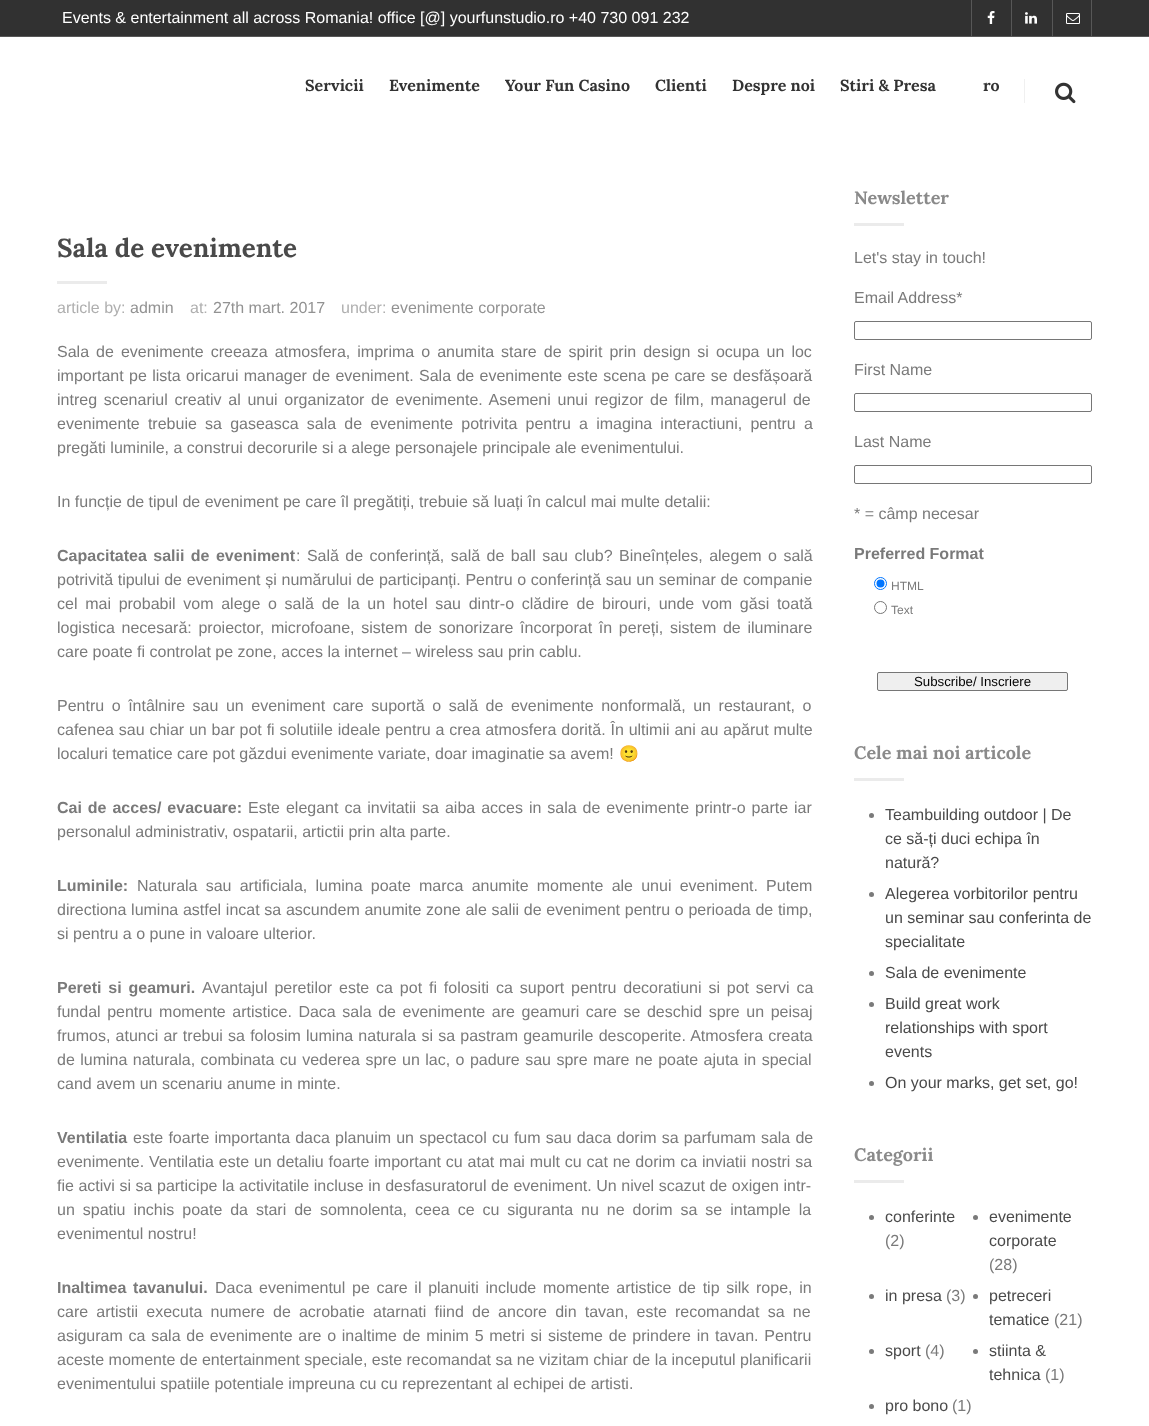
<!DOCTYPE html>
<meta charset="utf-8">
<style>body { margin: 0 } canvas { display: block }</style>
<canvas id="canvas" width="1149" height="1426"></canvas>
<img id="img1" src="img_01.png" hidden>
<img id="img2" src="img_02.png" hidden>
<img id="img3" src="img_03.png" hidden>
<img id="img4" src="img_04.png" hidden>
<script>
window.onload = function () {
	const canvas = document.getElementById("canvas");
	const ctx = canvas.getContext("2d");
	ctx.miterLimit = 4;
	ctx.fontKerning = "normal";
	function txt(s, x, y) {
		ctx.fillText(s, x, y);
	}
	function fill(x, y, w, h) {
		ctx.fillRect(x, y, w, h);
	}
	function img(id, x, y, w, h) {
		ctx.drawImage(document.getElementById(id), x, y, w, h);
	}

	ctx.fillStyle = "#FFFFFF";
	fill(0, 0, 1149, 1426);
	ctx.fillStyle = "#313131";
	fill(0, 0, 1149, 36);
	ctx.fillStyle = "#575757";
	fill(0, 36, 1149, 1);
	fill(971, 0, 1, 36);
	img("img1", 987, 11, 8, 13);
	fill(1011, 0, 1, 36);
	img("img2", 1025, 12, 12, 12);
	fill(1091, 0, 1, 36);
	fill(1052, 0, 1, 36);
	img("img3", 1066, 13, 14, 11);
	ctx.fillStyle = "#F0F0F0";
	fill(1024, 79, 1, 24);
	img("img4", 1055, 82, 21, 22);
	ctx.fillStyle = "#EBEBEB";
	fill(57, 281, 50, 3);
	fill(854, 223, 50, 3);
	ctx.beginPath();
	ctx.roundRect(854.5, 321.5, 237, 18, 1.5);
	ctx.strokeStyle = "#767676";
	ctx.stroke();
	ctx.beginPath();
	ctx.roundRect(854.5, 393.5, 237, 18, 1.5);
	ctx.stroke();
	ctx.beginPath();
	ctx.roundRect(854.5, 465.5, 237, 18, 1.5);
	ctx.stroke();
	ctx.beginPath();
	ctx.arc(880.5, 583.5, 6, 0, Math.PI * 2);
	ctx.strokeStyle = "#0075FF";
	ctx.stroke();
	ctx.fillStyle = "#0075FF";
	ctx.beginPath();
	ctx.arc(880.5, 583.5, 4, 0, Math.PI * 2);
	ctx.fill();
	ctx.beginPath();
	ctx.arc(880.5, 607.5, 6, 0, Math.PI * 2);
	ctx.strokeStyle = "#767676";
	ctx.stroke();
	ctx.fillStyle = "#EFEFEF";
	ctx.beginPath();
	ctx.roundRect(877.5, 672.5, 190, 18, 1.5);
	ctx.fill();
	ctx.stroke();
	ctx.fillStyle = "#EBEBEB";
	fill(854, 778, 50, 3);
	ctx.fillStyle = "#7A7A7A";
	ctx.beginPath();
	ctx.arc(871.5, 815.5, 2.5, 0, Math.PI * 2);
	ctx.fill();
	ctx.beginPath();
	ctx.arc(871.5, 894.5, 2.5, 0, Math.PI * 2);
	ctx.fill();
	ctx.beginPath();
	ctx.arc(871.5, 973.5, 2.5, 0, Math.PI * 2);
	ctx.fill();
	ctx.beginPath();
	ctx.arc(871.5, 1004.5, 2.5, 0, Math.PI * 2);
	ctx.fill();
	ctx.beginPath();
	ctx.arc(871.5, 1083.5, 2.5, 0, Math.PI * 2);
	ctx.fill();
	ctx.fillStyle = "#EBEBEB";
	fill(854, 1180, 50, 3);
	ctx.fillStyle = "#7A7A7A";
	ctx.beginPath();
	ctx.arc(871.5, 1217.5, 2.5, 0, Math.PI * 2);
	ctx.fill();
	ctx.beginPath();
	ctx.arc(975.5, 1217.5, 2.5, 0, Math.PI * 2);
	ctx.fill();
	ctx.beginPath();
	ctx.arc(871.5, 1296.5, 2.5, 0, Math.PI * 2);
	ctx.fill();
	ctx.beginPath();
	ctx.arc(975.5, 1296.5, 2.5, 0, Math.PI * 2);
	ctx.fill();
	ctx.beginPath();
	ctx.arc(871.5, 1351.5, 2.5, 0, Math.PI * 2);
	ctx.fill();
	ctx.beginPath();
	ctx.arc(975.5, 1351.5, 2.5, 0, Math.PI * 2);
	ctx.fill();
	ctx.beginPath();
	ctx.arc(871.5, 1406.5, 2.5, 0, Math.PI * 2);
	ctx.fill();
	ctx.font = "16px Liberation Sans";
	ctx.fillStyle = "#FFFFFF";
	txt("Events & entertainment all across Romania! office [@] yourfunstudio.ro +40 730 091 232", 62, 23);
	ctx.font = "bold 16px Lora";
	ctx.fillStyle = "#333333";
	txt("Servicii", 305, 91);
	txt("Evenimente", 389, 91);
	txt("Your Fun Casino", 505, 91);
	txt("Clienti", 655, 91);
	txt("Despre noi", 732, 91);
	txt("Stiri & Presa", 840, 91);
	txt("ro", 983, 91);
	ctx.font = "bold 26px Lora";
	ctx.fillStyle = "#4A4A4A";
	txt("Sala de evenimente", 57, 257);
	ctx.font = "16px Liberation Sans";
	ctx.fillStyle = "#AFAFAF";
	txt("article by:", 57, 313);
	ctx.fillStyle = "#929292";
	txt("admin", 130, 313);
	ctx.fillStyle = "#AFAFAF";
	txt("at:", 190, 313);
	ctx.fillStyle = "#929292";
	txt("27th mart. 2017", 213, 313);
	ctx.fillStyle = "#AFAFAF";
	txt("under:", 341, 313);
	ctx.fillStyle = "#929292";
	txt("evenimente corporate", 391, 313);
	ctx.wordSpacing = "2.6px";
	ctx.fillStyle = "#7A7A7A";
	txt("Sala de evenimente creeaza atmosfera, imprima o anumita stare de spirit prin design si ocupa un loc", 57, 357);
	ctx.wordSpacing = "0.9px";
	txt("important pe lista oricarui manager de eveniment. Sala de evenimente este scena pe care se desfășoară", 57, 381);
	ctx.wordSpacing = "2.25px";
	txt("intreg scenariul creativ al unui organizator de evenimente. Asemeni unui regizor de film, managerul de", 57, 405);
	ctx.wordSpacing = "3.75px";
	txt("evenimente trebuie sa gaseasca sala de evenimente potrivita pentru a imagina interactiuni, pentru a", 57, 429);
	ctx.wordSpacing = "0px";
	txt("pregăti luminile, a construi decorurile si a alege personajele principale ale evenimentului.", 57, 453);
	txt("In funcție de tipul de eveniment pe care îl pregătiți, trebuie să luați în calcul mai multe detalii:", 57, 507);
	ctx.wordSpacing = "2px";
	ctx.font = "bold 16px Liberation Sans";
	txt("Capacitatea salii de eveniment", 57, 561);
	ctx.font = "16px Liberation Sans";
	txt(": Sală de conferință, sală de ball sau club? Bineînțeles, alegem o sală", 296, 561);
	ctx.wordSpacing = "0.25px";
	txt("potrivită tipului de eveniment și numărului de participanți. Pentru o conferință sau un seminar de companie", 57, 585);
	ctx.wordSpacing = "3.25px";
	txt("cel mai probabil vom alege o sală de la un hotel sau dintr-o clădire de birouri, unde vom găsi toată", 57, 609);
	ctx.wordSpacing = "2.25px";
	txt("logistica necesară: proiector, microfoane, sistem de sonorizare încorporat în pereți, sistem de iluminare", 57, 633);
	ctx.wordSpacing = "0px";
	txt("care poate fi controlat pe zone, acces la internet – wireless sau prin cablu.", 57, 657);
	ctx.wordSpacing = "3.1px";
	txt("Pentru o întâlnire sau un eveniment care suportă o sală de evenimente nonformală, un restaurant, o", 57, 711);
	ctx.wordSpacing = "0.4px";
	txt("cafenea sau chiar un bar pot fi solutiile ideale pentru a crea atmosfera dorită. În ultimii ani au apărut multe", 57, 735);
	ctx.wordSpacing = "0px";
	txt("localuri tematice care pot găzdui evenimente variate, doar imaginatie sa avem!", 57, 759);
	ctx.font = "16px Noto Color Emoji";
	txt("🙂", 619, 759);
	ctx.wordSpacing = "1.5px";
	ctx.font = "bold 16px Liberation Sans";
	txt("Cai de acces/ evacuare:", 57, 813);
	ctx.font = "16px Liberation Sans";
	txt("Este elegant ca invitatii sa aiba acces in sala de evenimente printr-o parte iar", 248, 813);
	ctx.wordSpacing = "0px";
	txt("personalul administrativ, ospatarii, artictii prin alta parte.", 57, 837);
	ctx.font = "bold 16px Liberation Sans";
	txt("Luminile:", 57, 891);
	ctx.wordSpacing = "3.75px";
	ctx.font = "16px Liberation Sans";
	txt("Naturala sau artificiala, lumina poate marca anumite momente ale unui eveniment. Putem", 137, 891);
	ctx.wordSpacing = "0.25px";
	txt("directiona lumina astfel incat sa ascundem anumite zone ale salii de eveniment pentru o perioada de timp,", 57, 915);
	ctx.wordSpacing = "0px";
	txt("si pentru a o pune in valoare ulterior.", 57, 939);
	ctx.wordSpacing = "2.4px";
	ctx.font = "bold 16px Liberation Sans";
	txt("Pereti si geamuri.", 57, 993);
	ctx.font = "16px Liberation Sans";
	txt("Avantajul peretilor este ca pot fi folositi ca suport pentru decoratiuni si pot servi ca", 202, 993);
	ctx.wordSpacing = "2.1px";
	txt("fundal pentru momente artistice. Daca sala de evenimente are geamuri care se deschid spre un peisaj", 57, 1017);
	ctx.wordSpacing = "0.75px";
	txt("frumos, atunci ar trebui sa folosim lumina naturala si sa pastram geamurile descoperite. Atmosfera creata", 57, 1041);
	ctx.wordSpacing = "1px";
	txt("de lumina naturala, combinata cu vederea spre un lac, o padure sau spre mare ne poate ajuta in special", 57, 1065);
	ctx.wordSpacing = "0px";
	txt("cand avem un scenariu anume in minte.", 57, 1089);
	ctx.font = "bold 16px Liberation Sans";
	txt("Ventilatia", 57, 1143);
	ctx.wordSpacing = "0.7px";
	ctx.font = "16px Liberation Sans";
	txt("este foarte importanta daca planuim un spectacol cu fum sau daca dorim sa parfumam sala de", 133, 1143);
	ctx.wordSpacing = "0.4px";
	txt("evenimente. Ventilatia este un detaliu foarte important cu atat mai mult cu cat ne dorim ca inviatii nostri sa", 57, 1167);
	ctx.wordSpacing = "0.1px";
	txt("fie activi si sa participe la activitatile incluse in desfasuratorul de eveniment. Un nivel scazut de oxigen intr-", 57, 1191);
	ctx.wordSpacing = "3.5px";
	txt("un spatiu inchis poate da stari de somnolenta, ceea ce cu siguranta nu ne dorim sa se intample la", 57, 1215);
	ctx.wordSpacing = "0px";
	txt("evenimentul nostru!", 57, 1239);
	ctx.wordSpacing = "2.25px";
	ctx.font = "bold 16px Liberation Sans";
	txt("Inaltimea tavanului.", 57, 1293);
	ctx.font = "16px Liberation Sans";
	txt("Daca evenimentul pe care il planuiti include momente artistice de tip silk rope, in", 215, 1293);
	ctx.wordSpacing = "3.75px";
	txt("care artistii executa numere de acrobatie atarnati fiind de ancore din tavan, este recomandat sa ne", 57, 1317);
	ctx.wordSpacing = "1.3px";
	txt("asiguram ca sala de evenimente are o inaltime de minim 5 metri si sisteme de prindere in tavan. Pentru", 57, 1341);
	ctx.wordSpacing = "0px";
	txt("aceste momente de entertainment speciale, este recomandat sa ne vizitam chiar de la inceputul planificarii", 57, 1365);
	txt("evenimentului spatiile potentiale impreuna cu cu reprezentant al echipei de artisti.", 57, 1389);
	ctx.font = "bold 18px Lora";
	ctx.fillStyle = "#8A8A8A";
	txt("Newsletter", 854, 204);
	ctx.font = "16px Liberation Sans";
	ctx.fillStyle = "#7A7A7A";
	txt("Let's stay in touch!", 854, 263);
	txt("Email Address*", 854, 303);
	txt("First Name", 854, 375);
	txt("Last Name", 854, 447);
	txt("* = câmp necesar", 854, 519);
	ctx.font = "bold 16px Liberation Sans";
	txt("Preferred Format", 854, 559);
	ctx.font = "12px Liberation Sans";
	txt("HTML", 891, 590);
	txt("Text", 891, 614);
	ctx.font = "13.25px Liberation Sans";
	ctx.fillStyle = "#000000";
	txt("Subscribe/ Inscriere", 914, 686);
	ctx.font = "bold 18px Lora";
	ctx.fillStyle = "#8A8A8A";
	txt("Cele mai noi articole", 854, 759);
	ctx.font = "16px Liberation Sans";
	ctx.fillStyle = "#4A4A4A";
	txt("Teambuilding outdoor | De", 885, 820);
	txt("ce să-ți duci echipa în", 885, 844);
	txt("natură?", 885, 868);
	txt("Alegerea vorbitorilor pentru", 885, 899);
	txt("un seminar sau conferinta de", 885, 923);
	txt("specialitate", 885, 947);
	txt("Sala de evenimente", 885, 978);
	txt("Build great work", 885, 1009);
	txt("relationships with sport", 885, 1033);
	txt("events", 885, 1057);
	txt("On your marks, get set, go!", 885, 1088);
	ctx.font = "bold 18px Lora";
	ctx.fillStyle = "#8A8A8A";
	txt("Categorii", 854, 1161);
	ctx.font = "16px Liberation Sans";
	ctx.fillStyle = "#4A4A4A";
	txt("conferinte", 885, 1222);
	ctx.fillStyle = "#7A7A7A";
	txt("(2)", 885, 1246);
	ctx.fillStyle = "#4A4A4A";
	txt("evenimente", 989, 1222);
	txt("corporate", 989, 1246);
	ctx.fillStyle = "#7A7A7A";
	txt("(28)", 989, 1270);
	ctx.fillStyle = "#4A4A4A";
	txt("in presa", 885, 1301);
	ctx.fillStyle = "#7A7A7A";
	txt("(3)", 946, 1301);
	ctx.fillStyle = "#4A4A4A";
	txt("petreceri", 989, 1301);
	txt("tematice", 989, 1325);
	ctx.fillStyle = "#7A7A7A";
	txt("(21)", 1054, 1325);
	ctx.fillStyle = "#4A4A4A";
	txt("sport", 885, 1356);
	ctx.fillStyle = "#7A7A7A";
	txt("(4)", 925, 1356);
	ctx.fillStyle = "#4A4A4A";
	txt("stiinta &", 989, 1356);
	txt("tehnica", 989, 1380);
	ctx.fillStyle = "#7A7A7A";
	txt("(1)", 1045, 1380);
	ctx.fillStyle = "#4A4A4A";
	txt("pro bono", 885, 1411);
	ctx.fillStyle = "#7A7A7A";
	txt("(1)", 952, 1411);
};
</script>
